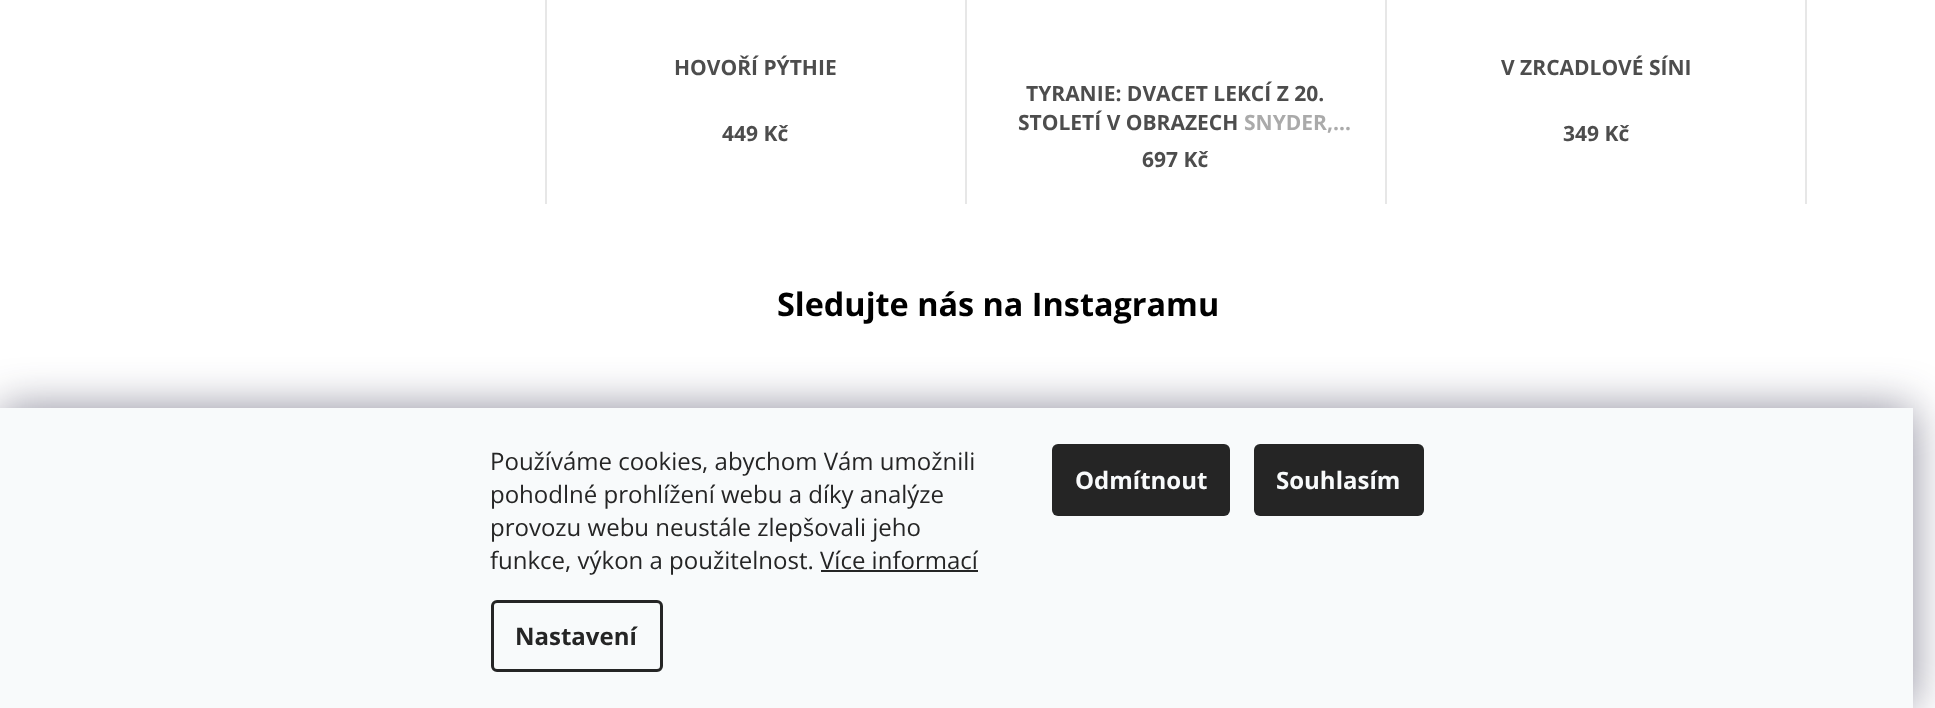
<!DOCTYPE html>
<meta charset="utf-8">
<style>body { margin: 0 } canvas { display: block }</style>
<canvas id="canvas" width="1935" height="708"></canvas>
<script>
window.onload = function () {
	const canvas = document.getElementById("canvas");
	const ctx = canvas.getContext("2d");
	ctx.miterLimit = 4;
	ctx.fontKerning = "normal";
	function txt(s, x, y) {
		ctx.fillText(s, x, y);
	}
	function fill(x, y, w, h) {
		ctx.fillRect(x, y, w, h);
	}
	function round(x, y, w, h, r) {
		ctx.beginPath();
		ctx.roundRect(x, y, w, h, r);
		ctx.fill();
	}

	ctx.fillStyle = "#FFFFFF";
	fill(0, 0, 1935, 708);
	ctx.fillStyle = "#E7E7E7";
	fill(965, 0, 2, 204);
	fill(545, 0, 2, 204);
	fill(1385, 0, 2, 204);
	fill(1805, 0, 2, 204);
	ctx.fillStyle = "rgba(27, 25, 57, 0.5)";
	ctx.filter = "blur(22.5px)";
	ctx.beginPath();
	ctx.rect(0, 408, 1913, 300);
	ctx.fill();
	ctx.filter = "none";
	ctx.fillStyle = "#F8FAFB";
	fill(0, 408, 1913, 300);
	ctx.fillStyle = "#252525";
	fill(821, 570, 157, 2);
	ctx.beginPath();
	ctx.roundRect(492.5, 601.5, 169, 69, 4.5);
	ctx.strokeStyle = "#252525";
	ctx.lineWidth = 3;
	ctx.stroke();
	round(1052, 444, 178, 72, 6);
	round(1254, 444, 170, 72, 6);
	ctx.font = "bold 21px Open Sans";
	ctx.fillStyle = "#4D4D4D";
	txt("HOVOŘÍ PÝTHIE", 674, 75);
	txt("449 Kč", 722, 141);
	txt("TYRANIE: DVACET LEKCÍ Z 20.", 1026, 101);
	txt("STOLETÍ V OBRAZECH", 1018, 130);
	ctx.fillStyle = "#AAAAAA";
	txt("SNYDER,…", 1244, 130);
	ctx.fillStyle = "#4D4D4D";
	txt("697 Kč", 1142, 167);
	txt("V ZRCADLOVÉ SÍNI", 1501, 75);
	txt("349 Kč", 1563, 141);
	ctx.font = "bold 32.4px Open Sans";
	ctx.fillStyle = "#000000";
	txt("Sledujte nás na Instagramu", 777, 316);
	ctx.font = "24px Open Sans";
	ctx.fillStyle = "#252525";
	txt("Používáme cookies, abychom Vám umožnili", 490, 470);
	txt("pohodlné prohlížení webu a díky analýze", 490, 503);
	txt("provozu webu neustále zlepšovali jeho", 490, 536);
	txt("funkce, výkon a použitelnost. Více informací", 490, 569);
	ctx.font = "bold 24px Open Sans";
	txt("Nastavení", 515, 645);
	ctx.fillStyle = "#F8FAFB";
	txt("Odmítnout", 1075, 489);
	txt("Souhlasím", 1276, 489);
};
</script>
